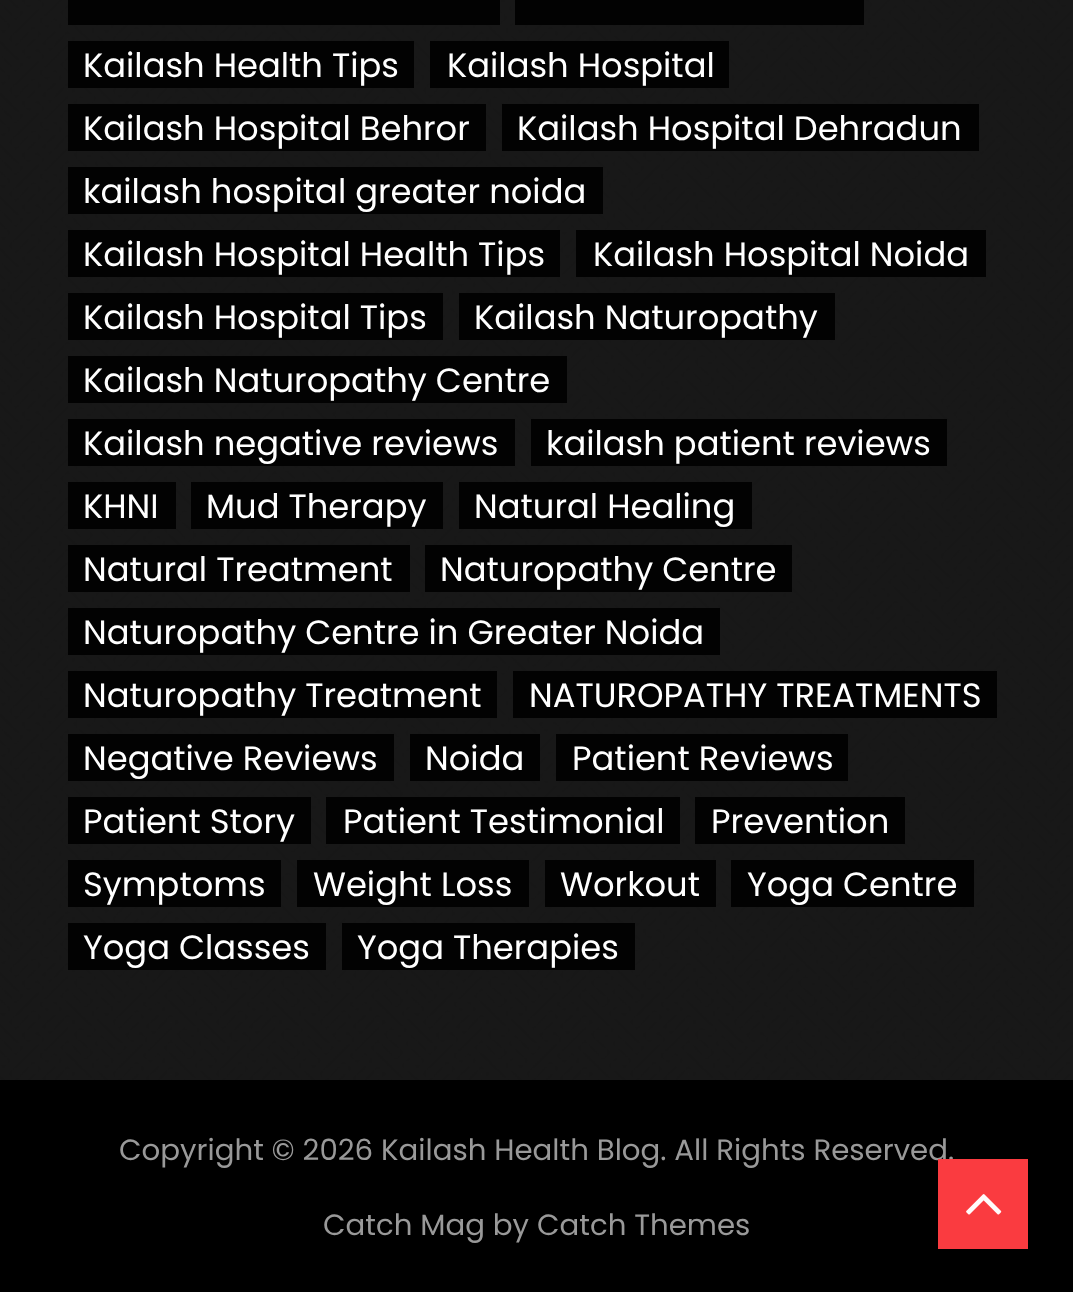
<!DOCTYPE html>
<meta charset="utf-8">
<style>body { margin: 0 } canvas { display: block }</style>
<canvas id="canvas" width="1073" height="1292"></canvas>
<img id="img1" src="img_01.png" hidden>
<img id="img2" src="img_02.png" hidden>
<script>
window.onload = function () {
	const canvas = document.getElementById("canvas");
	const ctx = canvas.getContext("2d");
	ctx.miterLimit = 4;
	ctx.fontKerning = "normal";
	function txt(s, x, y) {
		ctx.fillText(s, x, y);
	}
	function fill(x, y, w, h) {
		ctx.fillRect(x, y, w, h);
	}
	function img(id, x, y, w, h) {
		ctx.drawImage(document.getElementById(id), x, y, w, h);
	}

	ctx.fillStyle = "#FFFFFF";
	fill(0, 0, 1073, 1292);
	img("img1", 0, 0, 1073, 1080);
	ctx.fillStyle = "#020202";
	fill(68, 0, 432, 25);
	fill(515, 0, 349, 25);
	fill(68, 41, 346, 47);
	fill(430, 41, 299, 47);
	fill(68, 104, 418, 47);
	fill(502, 104, 477, 47);
	fill(68, 167, 535, 47);
	fill(68, 230, 492, 47);
	fill(576, 230, 410, 47);
	fill(68, 293, 375, 47);
	fill(459, 293, 376, 47);
	fill(68, 356, 499, 47);
	fill(68, 419, 447, 47);
	fill(531, 419, 416, 47);
	fill(68, 482, 108, 47);
	fill(191, 482, 252, 47);
	fill(459, 482, 293, 47);
	fill(68, 545, 342, 47);
	fill(425, 545, 367, 47);
	fill(68, 608, 652, 47);
	fill(68, 671, 429, 47);
	fill(513, 671, 484, 47);
	fill(68, 734, 326, 47);
	fill(410, 734, 130, 47);
	fill(556, 734, 292, 47);
	fill(68, 797, 243, 47);
	fill(326, 797, 354, 47);
	fill(695, 797, 210, 47);
	fill(68, 860, 213, 47);
	fill(297, 860, 232, 47);
	fill(545, 860, 171, 47);
	fill(731, 860, 243, 47);
	fill(68, 923, 258, 47);
	fill(342, 923, 293, 47);
	ctx.fillStyle = "#000000";
	fill(0, 1080, 1073, 212);
	ctx.font = "33.75px Poppins";
	ctx.fillStyle = "#FFFFFF";
	txt("Kailash Health Tips", 83, 77);
	txt("Kailash Hospital", 447, 77);
	txt("Kailash Hospital Behror", 83, 140);
	txt("Kailash Hospital Dehradun", 517, 140);
	txt("kailash hospital greater noida", 83, 203);
	txt("Kailash Hospital Health Tips", 83, 266);
	txt("Kailash Hospital Noida", 593, 266);
	txt("Kailash Hospital Tips", 83, 329);
	txt("Kailash Naturopathy", 474, 329);
	txt("Kailash Naturopathy Centre", 83, 392);
	txt("Kailash negative reviews", 83, 455);
	txt("kailash patient reviews", 546, 455);
	txt("KHNI", 83, 518);
	txt("Mud Therapy", 206, 518);
	txt("Natural Healing", 474, 518);
	txt("Natural Treatment", 83, 581);
	txt("Naturopathy Centre", 440, 581);
	txt("Naturopathy Centre in Greater Noida", 83, 644);
	txt("Naturopathy Treatment", 83, 707);
	txt("NATUROPATHY TREATMENTS", 529, 707);
	txt("Negative Reviews", 83, 770);
	txt("Noida", 425, 770);
	txt("Patient Reviews", 572, 770);
	txt("Patient Story", 83, 833);
	txt("Patient Testimonial", 343, 833);
	txt("Prevention", 711, 833);
	txt("Symptoms", 83, 896);
	txt("Weight Loss", 313, 896);
	txt("Workout", 560, 896);
	txt("Yoga Centre", 747, 896);
	txt("Yoga Classes", 83, 959);
	txt("Yoga Therapies", 357, 959);
	ctx.font = "29.25px Poppins";
	ctx.fillStyle = "#999999";
	txt("Copyright © 2026 Kailash Health Blog. All Rights Reserved.", 119, 1160);
	txt("Catch Mag by Catch Themes", 323, 1235);
	ctx.fillStyle = "rgba(255, 60, 65, 0.98)";
	fill(938, 1159, 90, 90);
	img("img2", 966, 1194, 36, 21);
};
</script>
